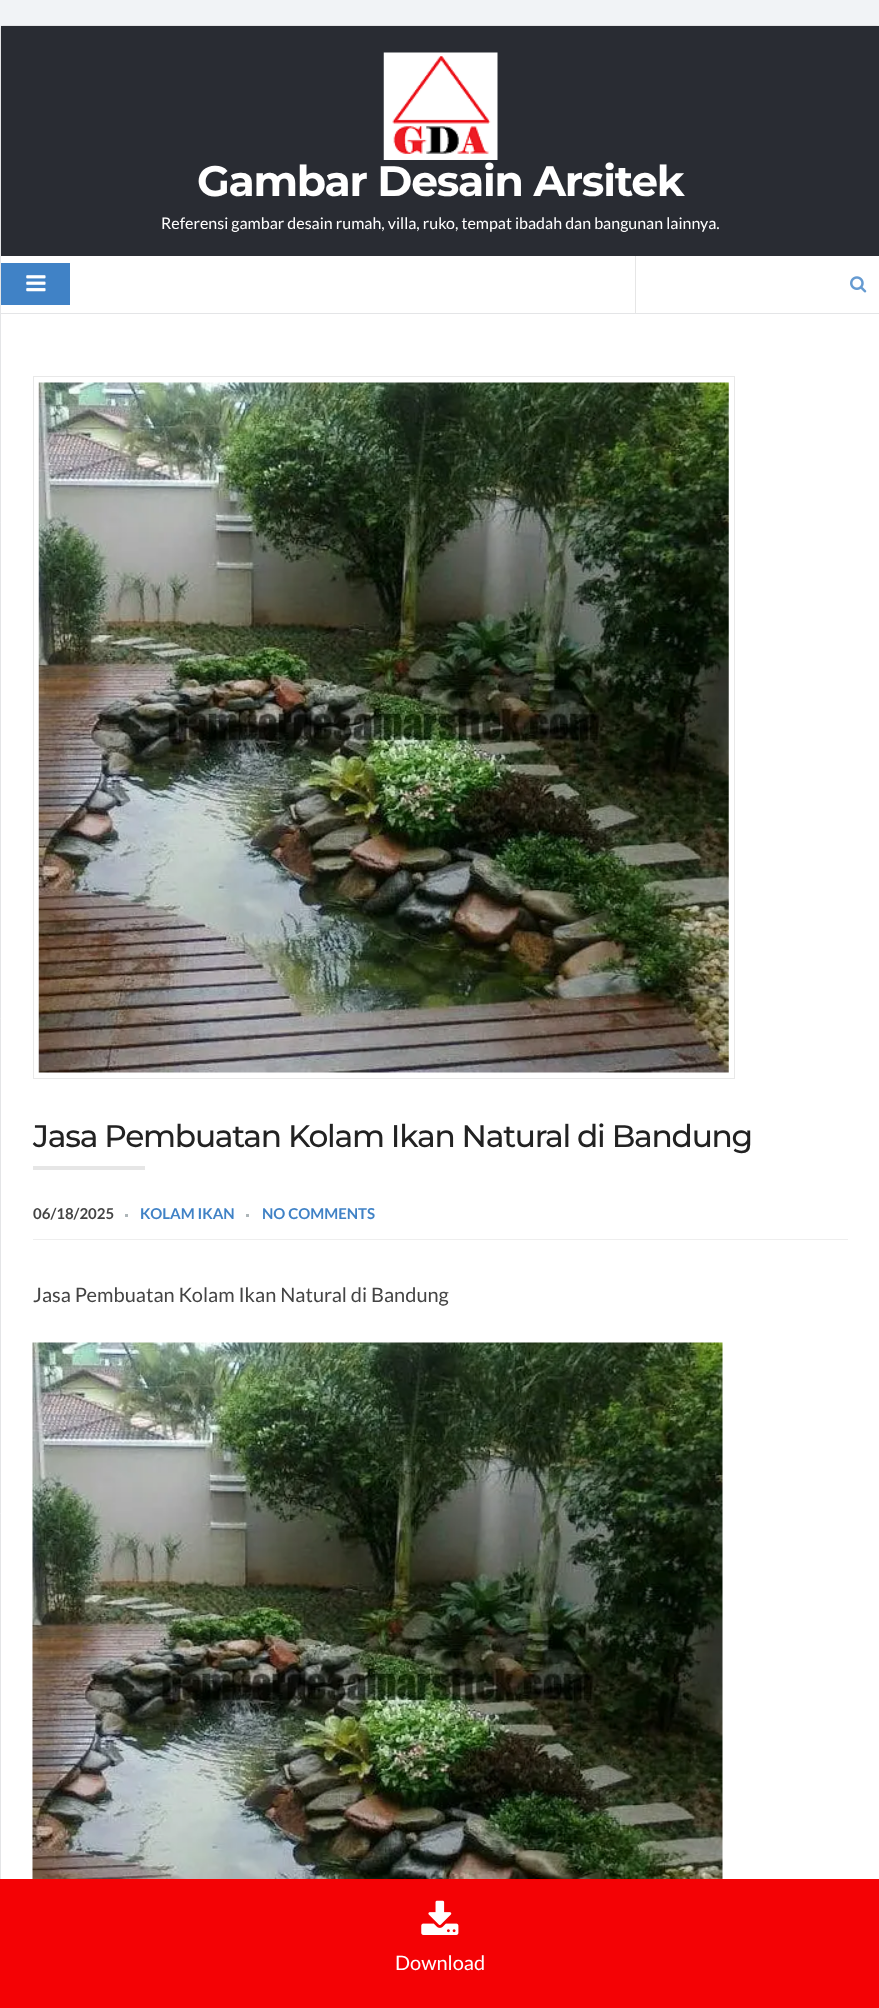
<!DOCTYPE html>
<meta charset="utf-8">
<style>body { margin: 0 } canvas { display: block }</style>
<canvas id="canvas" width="879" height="2008"></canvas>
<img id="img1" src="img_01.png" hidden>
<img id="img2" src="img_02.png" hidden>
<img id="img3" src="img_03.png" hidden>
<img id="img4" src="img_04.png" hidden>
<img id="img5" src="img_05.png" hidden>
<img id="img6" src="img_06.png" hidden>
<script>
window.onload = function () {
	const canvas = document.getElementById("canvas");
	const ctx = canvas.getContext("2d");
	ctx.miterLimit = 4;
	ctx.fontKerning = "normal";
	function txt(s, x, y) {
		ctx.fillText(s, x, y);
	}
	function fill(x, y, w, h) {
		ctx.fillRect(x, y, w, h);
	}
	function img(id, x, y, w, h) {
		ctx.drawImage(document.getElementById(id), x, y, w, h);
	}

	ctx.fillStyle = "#F1F3F6";
	fill(0, 0, 879, 2008);
	ctx.fillStyle = "#FFFFFF";
	ctx.beginPath();
	ctx.roundRect(0.5, 25.5, 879, 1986, 2);
	ctx.fill();
	ctx.strokeStyle = "#E4E5E7";
	ctx.stroke();
	ctx.fillStyle = "#292C33";
	fill(1, 26, 878, 230);
	img("img1", 383, 52, 115, 108);
	ctx.fillStyle = "#E4E5E7";
	fill(1, 313, 878, 1);
	ctx.fillStyle = "#4082C6";
	fill(1, 263, 69, 42);
	img("img2", 26, 275, 20, 17);
	ctx.fillStyle = "#E6E6E6";
	fill(635, 256, 1, 57);
	img("img3", 850, 276, 17, 17);
	ctx.strokeStyle = "#E8E8E8";
	ctx.strokeRect(33.5, 376.5, 701, 702);
	img("img4", 38, 382, 691, 691);
	fill(33, 1166, 112, 4);
	ctx.fillStyle = "#EEEEEE";
	fill(33, 1239, 815, 1);
	ctx.fillStyle = "#AEB6B9";
	fill(125, 1214, 3, 3);
	fill(246, 1214, 3, 3);
	img("img5", 32, 1342, 691, 537);
	ctx.fillStyle = "#F40205";
	fill(0, 1879, 879, 129);
	img("img6", 421, 1900, 38, 35);
	ctx.letterSpacing = "-1.25px";
	ctx.font = "bold 42.5px Montserrat";
	ctx.fillStyle = "#FFFFFF";
	txt("Gambar Desain Arsitek", 197, 196);
	ctx.letterSpacing = "0px";
	ctx.font = "16px Lato";
	txt("Referensi gambar desain rumah, villa, ruko, tempat ibadah dan bangunan lainnya.", 161, 229);
	ctx.letterSpacing = "-1.25px";
	ctx.font = "500 31.25px Montserrat";
	ctx.fillStyle = "#222222";
	txt("Jasa Pembuatan Kolam Ikan Natural di Bandung", 33, 1147);
	ctx.letterSpacing = "0px";
	ctx.font = "bold 15px Lato";
	ctx.fillStyle = "#444444";
	txt("06/18/2025", 33, 1219);
	ctx.fillStyle = "#4082C6";
	txt("KOLAM IKAN", 140, 1219);
	txt("NO COMMENTS", 262, 1219);
	ctx.font = "20px Lato";
	ctx.fillStyle = "#444444";
	txt("Jasa Pembuatan Kolam Ikan Natural di Bandung", 33, 1302);
	ctx.fillStyle = "#FFFFFF";
	txt("Download", 395, 1970);
};
</script>
